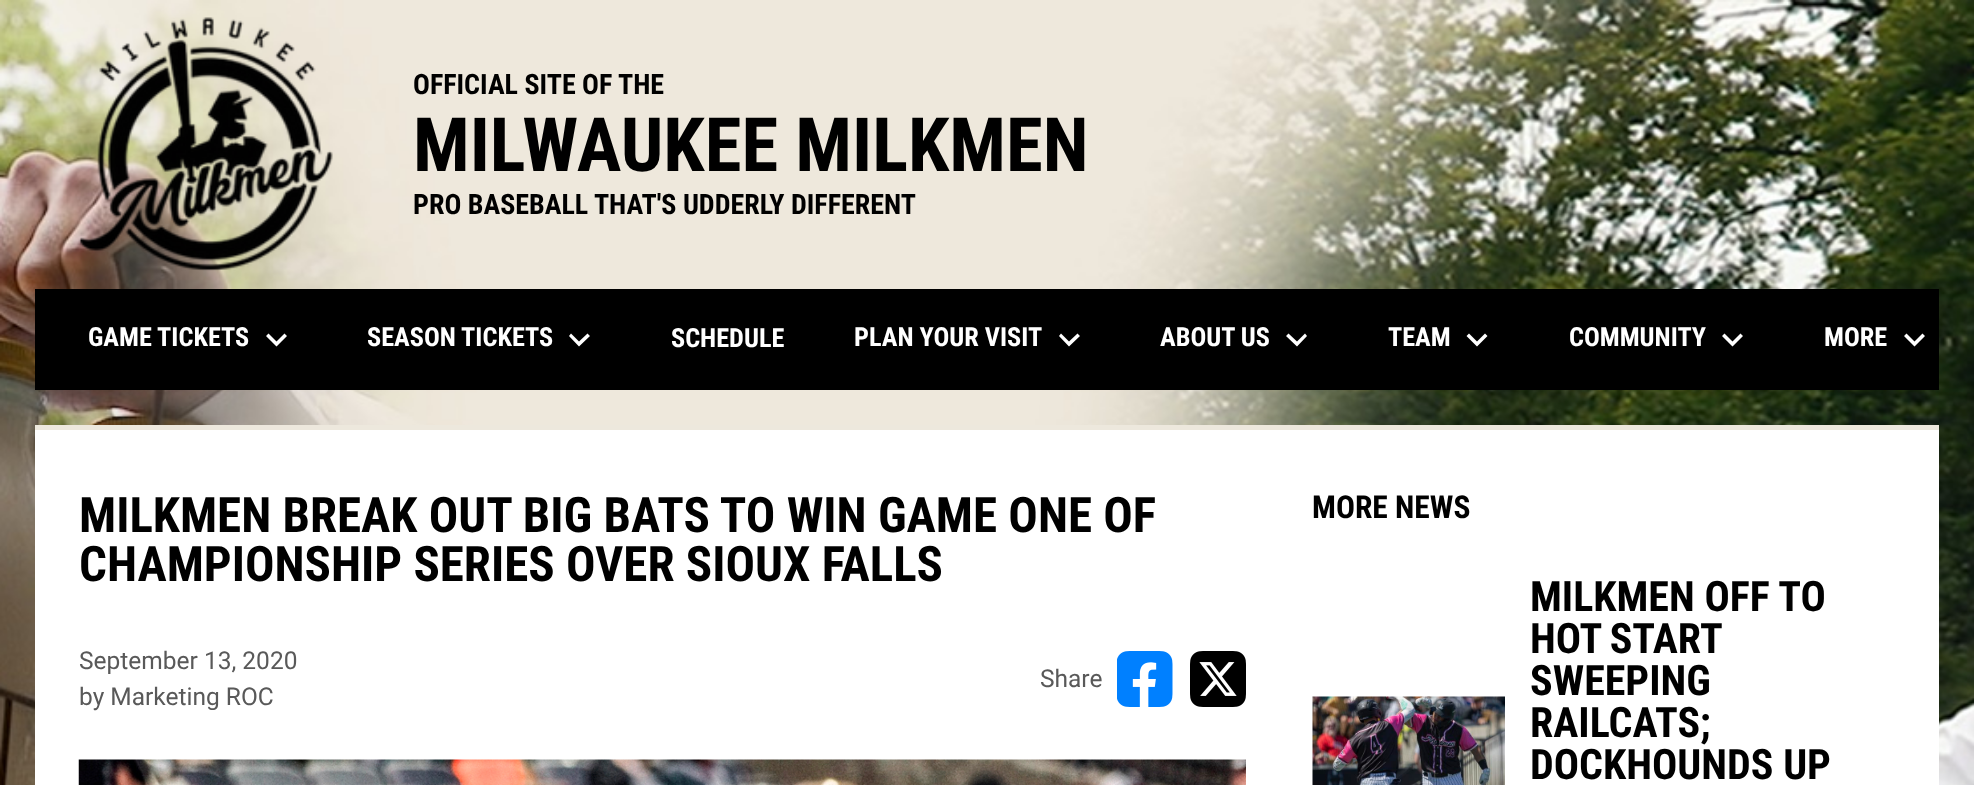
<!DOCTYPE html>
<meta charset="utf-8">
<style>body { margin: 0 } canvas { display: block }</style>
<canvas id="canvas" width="1974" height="785"></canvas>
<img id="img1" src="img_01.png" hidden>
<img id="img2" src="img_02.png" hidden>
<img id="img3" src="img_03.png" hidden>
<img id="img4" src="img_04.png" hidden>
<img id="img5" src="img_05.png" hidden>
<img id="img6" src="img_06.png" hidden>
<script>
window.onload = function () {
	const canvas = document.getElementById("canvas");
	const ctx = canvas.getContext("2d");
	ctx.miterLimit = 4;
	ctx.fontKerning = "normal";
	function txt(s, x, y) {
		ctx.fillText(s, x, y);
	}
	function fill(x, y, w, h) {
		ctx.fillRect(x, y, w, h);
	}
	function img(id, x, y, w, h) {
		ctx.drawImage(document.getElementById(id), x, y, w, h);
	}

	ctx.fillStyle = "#FFFFFF";
	fill(0, 0, 1974, 785);
	img("img1", 0, 0, 1974, 785);
	img("img2", 78, 17, 255, 254);
	ctx.fillStyle = "#000000";
	fill(35, 289, 1904, 101);
	ctx.fillStyle = "#FFFFFF";
	ctx.beginPath();
	ctx.moveTo(268.5, 333.5);
	ctx.lineTo(276.5, 341.5);
	ctx.lineTo(284.5, 333.5);
	ctx.lineTo(287, 336);
	ctx.lineTo(276.5, 346.5);
	ctx.lineTo(266, 336);
	ctx.closePath();
	ctx.fill();
	ctx.beginPath();
	ctx.moveTo(571, 333.5);
	ctx.lineTo(579, 341.5);
	ctx.lineTo(587.5, 333.5);
	ctx.lineTo(590, 336);
	ctx.lineTo(579, 346.5);
	ctx.lineTo(569, 336);
	ctx.closePath();
	ctx.fill();
	ctx.beginPath();
	ctx.moveTo(1061, 333.5);
	ctx.lineTo(1069, 341.5);
	ctx.lineTo(1077.5, 333.5);
	ctx.lineTo(1080, 336);
	ctx.lineTo(1069, 346.5);
	ctx.lineTo(1059, 336);
	ctx.closePath();
	ctx.fill();
	ctx.beginPath();
	ctx.moveTo(1288.5, 333.5);
	ctx.lineTo(1297, 341.5);
	ctx.lineTo(1305, 333.5);
	ctx.lineTo(1307, 336);
	ctx.lineTo(1297, 346.5);
	ctx.lineTo(1286, 336);
	ctx.closePath();
	ctx.fill();
	ctx.beginPath();
	ctx.moveTo(1469, 333.5);
	ctx.lineTo(1477, 341.5);
	ctx.lineTo(1485, 333.5);
	ctx.lineTo(1487.5, 336);
	ctx.lineTo(1477, 346.5);
	ctx.lineTo(1466.5, 336);
	ctx.closePath();
	ctx.fill();
	ctx.beginPath();
	ctx.moveTo(1724.5, 333.5);
	ctx.lineTo(1732.5, 341.5);
	ctx.lineTo(1740.5, 333.5);
	ctx.lineTo(1743, 336);
	ctx.lineTo(1732.5, 346.5);
	ctx.lineTo(1722, 336);
	ctx.closePath();
	ctx.fill();
	ctx.beginPath();
	ctx.moveTo(1906.5, 333.5);
	ctx.lineTo(1914.5, 341.5);
	ctx.lineTo(1922.5, 333.5);
	ctx.lineTo(1925, 336);
	ctx.lineTo(1914.5, 346.5);
	ctx.lineTo(1904, 336);
	ctx.closePath();
	ctx.fill();
	fill(35, 430, 1904, 355);
	ctx.fillStyle = "#EDE8DD";
	fill(35, 425, 1904, 5);
	img("img3", 1117, 651, 56, 56);
	img("img4", 1190, 651, 56, 56);
	img("img5", 78, 759, 1168, 26);
	img("img6", 1312, 696, 193, 89);
	ctx.font = "bold 28px Roboto Condensed";
	ctx.fillStyle = "#000000";
	txt("OFFICIAL SITE OF THE", 413, 94);
	ctx.font = "bold 74.75px Roboto Condensed";
	txt("MILWAUKEE MILKMEN", 413, 171);
	ctx.font = "bold 28px Roboto Condensed";
	txt("PRO BASEBALL THAT'S UDDERLY DIFFERENT", 413, 214);
	ctx.font = "bold 26.25px Roboto Condensed";
	ctx.fillStyle = "#FFFFFF";
	txt("GAME TICKETS", 88, 346);
	txt("SEASON TICKETS", 367, 346);
	txt("SCHEDULE", 671, 347);
	txt("PLAN YOUR VISIT", 854, 346);
	txt("ABOUT US", 1160, 346);
	txt("TEAM", 1388, 346);
	txt("COMMUNITY", 1569, 346);
	txt("MORE", 1824, 346);
	ctx.font = "bold 49px Roboto Condensed";
	ctx.fillStyle = "#000000";
	txt("MILKMEN BREAK OUT BIG BATS TO WIN GAME ONE OF", 79, 532);
	txt("CHAMPIONSHIP SERIES OVER SIOUX FALLS", 79, 581);
	ctx.font = "24.5px Roboto";
	ctx.fillStyle = "#595959";
	txt("September 13, 2020", 79, 669);
	txt("by Marketing ROC", 79, 705);
	txt("Share", 1040, 687);
	ctx.font = "bold 31.5px Roboto Condensed";
	ctx.fillStyle = "#000000";
	txt("MORE NEWS", 1312, 518);
	ctx.font = "bold 42px Roboto Condensed";
	txt("MILKMEN OFF TO", 1530, 611);
	ctx.wordSpacing = "-1px";
	txt("HOT START", 1530, 653);
	ctx.wordSpacing = "0px";
	txt("SWEEPING", 1530, 695);
	txt("RAILCATS;", 1530, 737);
	txt("DOCKHOUNDS UP", 1530, 779);
};
</script>
